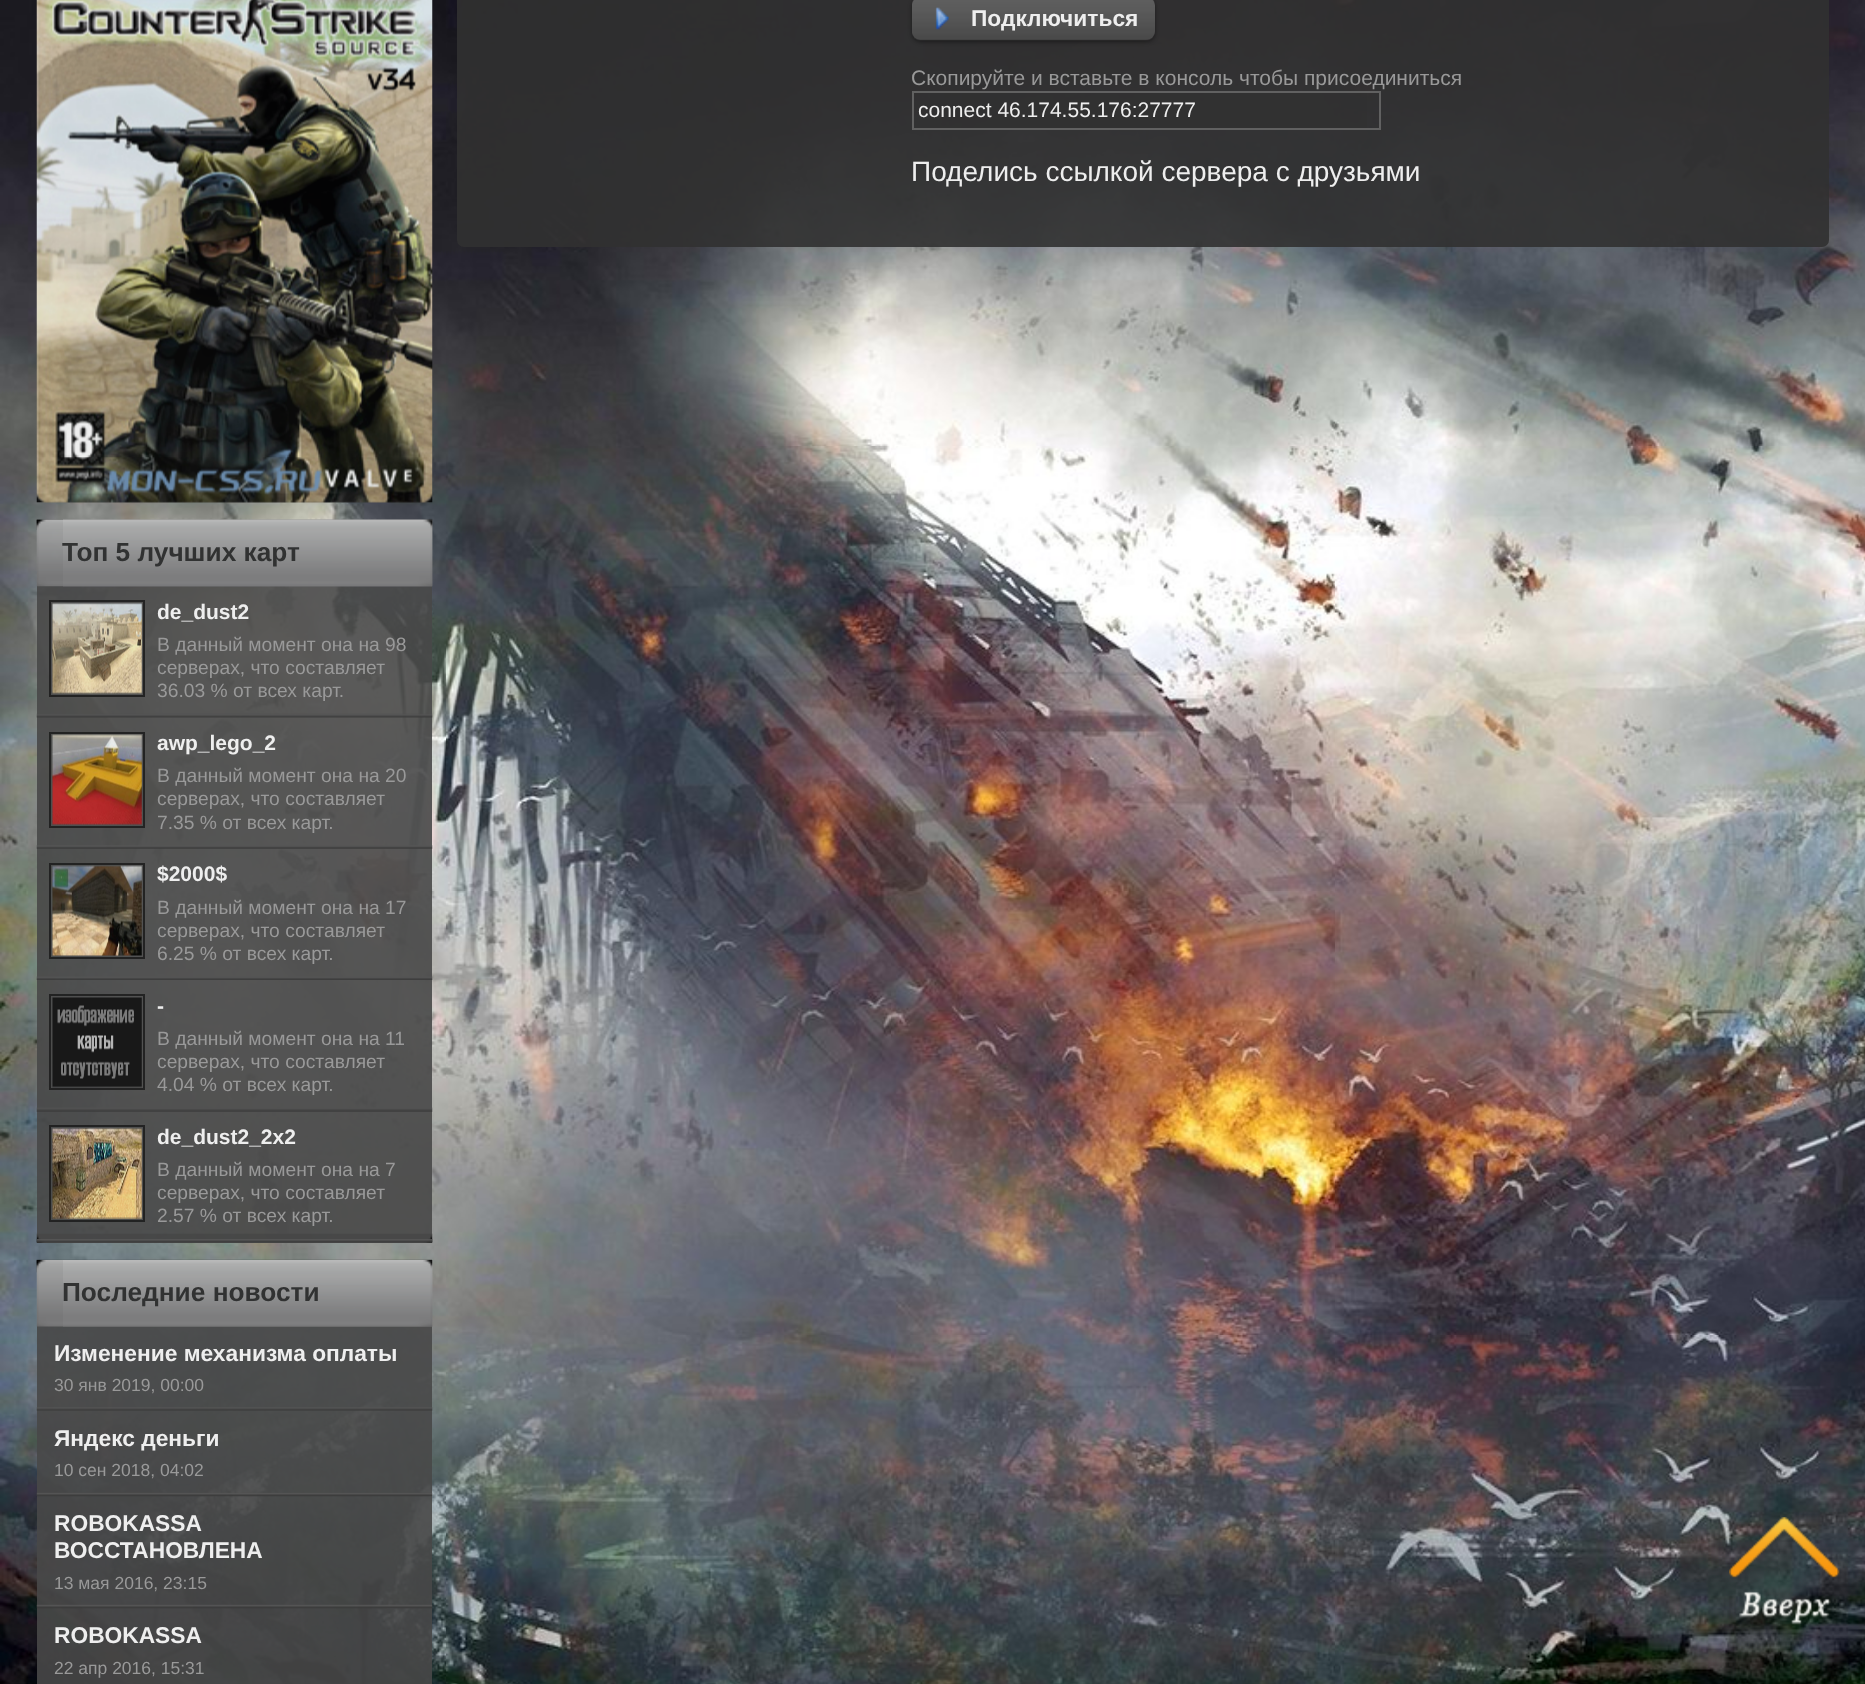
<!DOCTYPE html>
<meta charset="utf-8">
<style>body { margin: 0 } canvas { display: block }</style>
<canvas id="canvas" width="1865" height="1684"></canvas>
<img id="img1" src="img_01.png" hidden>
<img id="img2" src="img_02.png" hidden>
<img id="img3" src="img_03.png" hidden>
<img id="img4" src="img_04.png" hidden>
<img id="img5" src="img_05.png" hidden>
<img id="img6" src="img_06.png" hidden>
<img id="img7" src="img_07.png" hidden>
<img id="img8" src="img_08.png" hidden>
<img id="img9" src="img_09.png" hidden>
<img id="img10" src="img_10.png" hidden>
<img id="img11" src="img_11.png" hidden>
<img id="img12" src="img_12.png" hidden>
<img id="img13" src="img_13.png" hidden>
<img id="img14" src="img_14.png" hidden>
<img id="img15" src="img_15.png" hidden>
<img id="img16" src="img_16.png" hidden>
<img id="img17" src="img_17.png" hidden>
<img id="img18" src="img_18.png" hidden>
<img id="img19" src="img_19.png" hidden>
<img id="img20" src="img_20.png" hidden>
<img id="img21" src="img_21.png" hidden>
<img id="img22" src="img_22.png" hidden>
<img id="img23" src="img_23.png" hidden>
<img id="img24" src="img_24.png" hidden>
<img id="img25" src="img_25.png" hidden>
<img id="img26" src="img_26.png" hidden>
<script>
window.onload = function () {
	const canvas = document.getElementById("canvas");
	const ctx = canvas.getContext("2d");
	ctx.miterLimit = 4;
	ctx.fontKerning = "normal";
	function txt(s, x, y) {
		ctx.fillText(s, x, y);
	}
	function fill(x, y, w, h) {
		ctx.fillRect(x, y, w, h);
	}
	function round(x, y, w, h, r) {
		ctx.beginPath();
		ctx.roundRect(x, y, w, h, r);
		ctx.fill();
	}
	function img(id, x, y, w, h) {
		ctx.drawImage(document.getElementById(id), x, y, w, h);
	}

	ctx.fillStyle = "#FFFFFF";
	fill(0, 0, 1865, 1684);
	img("img1", 0, 0, 1865, 1684);
	ctx.fillStyle = "rgba(49, 49, 49, 0.9)";
	round(457, -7, 1372, 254, 7);
	ctx.save();
	ctx.beginPath();
	ctx.moveTo(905, 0);
	ctx.lineTo(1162, 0);
	ctx.lineTo(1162, 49);
	ctx.lineTo(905, 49);
	ctx.closePath();
	ctx.moveTo(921, -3);
	ctx.lineTo(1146, -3);
	ctx.bezierCurveTo(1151, -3, 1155, 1, 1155, 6);
	ctx.lineTo(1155, 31);
	ctx.bezierCurveTo(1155, 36, 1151, 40, 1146, 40);
	ctx.lineTo(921, 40);
	ctx.bezierCurveTo(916, 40, 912, 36, 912, 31);
	ctx.lineTo(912, 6);
	ctx.bezierCurveTo(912, 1, 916, -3, 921, -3);
	ctx.closePath();
	ctx.clip("evenodd");
	ctx.fillStyle = "rgba(0, 0, 0, 0.45)";
	ctx.filter = "blur(2px)";
	ctx.beginPath();
	ctx.roundRect(912, -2, 243, 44, 9);
	ctx.fill();
	ctx.filter = "none";
	ctx.restore();
	ctx.fillStyle = "rgba(51, 51, 51, 0.9)";
	round(912, -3, 243, 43, 9);
	img("img2", 912, 0, 243, 41);
	img("img3", 935, 7, 14, 23);
	ctx.fillStyle = "rgba(49, 49, 49, 0.9)";
	fill(930, 93, 437, 35);
	ctx.strokeStyle = "#616161";
	ctx.lineWidth = 2;
	ctx.strokeRect(913, 92, 467, 37);
	img("img4", 36, 493, 397, 10);
	img("img5", 36, 0, 397, 503);
	ctx.fillStyle = "rgba(72, 72, 72, 0.9)";
	fill(37, 520, 395, 723);
	img("img6", 36, 519, 397, 11);
	img("img7", 36, 1233, 397, 10);
	img("img8", 36, 519, 397, 68);
	img("img9", 63, 519, 370, 68);
	img("img10", 36, 713, 397, 5);
	ctx.strokeStyle = "rgba(30, 30, 30, 0.9)";
	ctx.strokeRect(50, 601, 94, 95);
	img("img11", 52, 603, 90, 91);
	img("img12", 36, 845, 397, 4);
	ctx.strokeRect(50, 733, 94, 94);
	img("img13", 52, 734, 90, 91);
	img("img14", 36, 976, 397, 4);
	ctx.strokeRect(50, 864, 94, 94);
	img("img15", 52, 865, 90, 91);
	img("img16", 36, 1107, 397, 5);
	ctx.strokeRect(50, 995, 94, 94);
	img("img17", 52, 997, 90, 91);
	img("img18", 36, 1239, 397, 4);
	ctx.strokeRect(50, 1126, 94, 95);
	img("img19", 52, 1128, 90, 91);
	fill(37, 1260, 395, 424);
	img("img20", 36, 1259, 396, 14);
	img("img21", 36, 1260, 397, 67);
	img("img22", 63, 1260, 370, 67);
	img("img23", 36, 1407, 397, 4);
	img("img24", 36, 1492, 397, 5);
	img("img25", 36, 1604, 397, 5);
	img("img26", 1729, 1517, 111, 108);
	ctx.font = "bold 22.75px Liberation Sans";
	ctx.fillStyle = "#EEEEEE";
	txt("Подключиться", 971, 26);
	ctx.font = "21px Liberation Sans";
	ctx.fillStyle = "#999999";
	txt("Скопируйте и вставьте в консоль чтобы присоединиться", 911, 85);
	ctx.fillStyle = "#EEEEEE";
	txt("connect 46.174.55.176:27777", 918, 117);
	ctx.font = "28px Liberation Sans";
	txt("Поделись ссылкой сервера с друзьями", 911, 181);
	ctx.font = "bold 26.25px Liberation Sans";
	ctx.fillStyle = "#313232";
	txt("Топ 5 лучших карт", 62, 561);
	ctx.font = "bold 21px Liberation Sans";
	ctx.fillStyle = "#EEEEEE";
	txt("de_dust2", 157, 619);
	ctx.font = "19.25px Liberation Sans";
	ctx.fillStyle = "#999999";
	txt("В данный момент она на 98", 157, 651);
	txt("серверах, что составляет", 157, 674);
	txt("36.03 % от всех карт.", 157, 697);
	ctx.font = "bold 21px Liberation Sans";
	ctx.fillStyle = "#EEEEEE";
	txt("awp_lego_2", 157, 750);
	ctx.font = "19.25px Liberation Sans";
	ctx.fillStyle = "#999999";
	txt("В данный момент она на 20", 157, 782);
	txt("серверах, что составляет", 157, 805);
	txt("7.35 % от всех карт.", 157, 829);
	ctx.font = "bold 21px Liberation Sans";
	ctx.fillStyle = "#EEEEEE";
	txt("$2000$", 157, 881);
	ctx.font = "19.25px Liberation Sans";
	ctx.fillStyle = "#999999";
	txt("В данный момент она на 17", 157, 914);
	txt("серверах, что составляет", 157, 937);
	txt("6.25 % от всех карт.", 157, 960);
	ctx.font = "bold 21px Liberation Sans";
	ctx.fillStyle = "#EEEEEE";
	txt("-", 157, 1013);
	ctx.font = "19.25px Liberation Sans";
	ctx.fillStyle = "#999999";
	txt("В данный момент она на 11", 157, 1045);
	txt("серверах, что составляет", 157, 1068);
	txt("4.04 % от всех карт.", 157, 1091);
	ctx.font = "bold 21px Liberation Sans";
	ctx.fillStyle = "#EEEEEE";
	txt("de_dust2_2x2", 157, 1144);
	ctx.font = "19.25px Liberation Sans";
	ctx.fillStyle = "#999999";
	txt("В данный момент она на 7", 157, 1176);
	txt("серверах, что составляет", 157, 1199);
	txt("2.57 % от всех карт.", 157, 1222);
	ctx.font = "bold 26.25px Liberation Sans";
	ctx.fillStyle = "#313232";
	txt("Последние новости", 62, 1301);
	ctx.font = "bold 22.75px Liberation Sans";
	ctx.fillStyle = "#EEEEEE";
	txt("Изменение механизма оплаты", 54, 1361);
	ctx.font = "17.5px Liberation Sans";
	ctx.fillStyle = "#999999";
	txt("30 янв 2019, 00:00", 54, 1391);
	ctx.font = "bold 22.75px Liberation Sans";
	ctx.fillStyle = "#EEEEEE";
	txt("Яндекс деньги", 54, 1446);
	ctx.font = "17.5px Liberation Sans";
	ctx.fillStyle = "#999999";
	txt("10 сен 2018, 04:02", 54, 1476);
	ctx.font = "bold 22.75px Liberation Sans";
	ctx.fillStyle = "#EEEEEE";
	txt("ROBOKASSA", 54, 1531);
	txt("ВОССТАНОВЛЕНА", 54, 1558);
	ctx.font = "17.5px Liberation Sans";
	ctx.fillStyle = "#999999";
	txt("13 мая 2016, 23:15", 54, 1589);
	ctx.font = "bold 22.75px Liberation Sans";
	ctx.fillStyle = "#EEEEEE";
	txt("ROBOKASSA", 54, 1643);
	ctx.font = "17.5px Liberation Sans";
	ctx.fillStyle = "#999999";
	txt("22 апр 2016, 15:31", 54, 1674);
};
</script>
